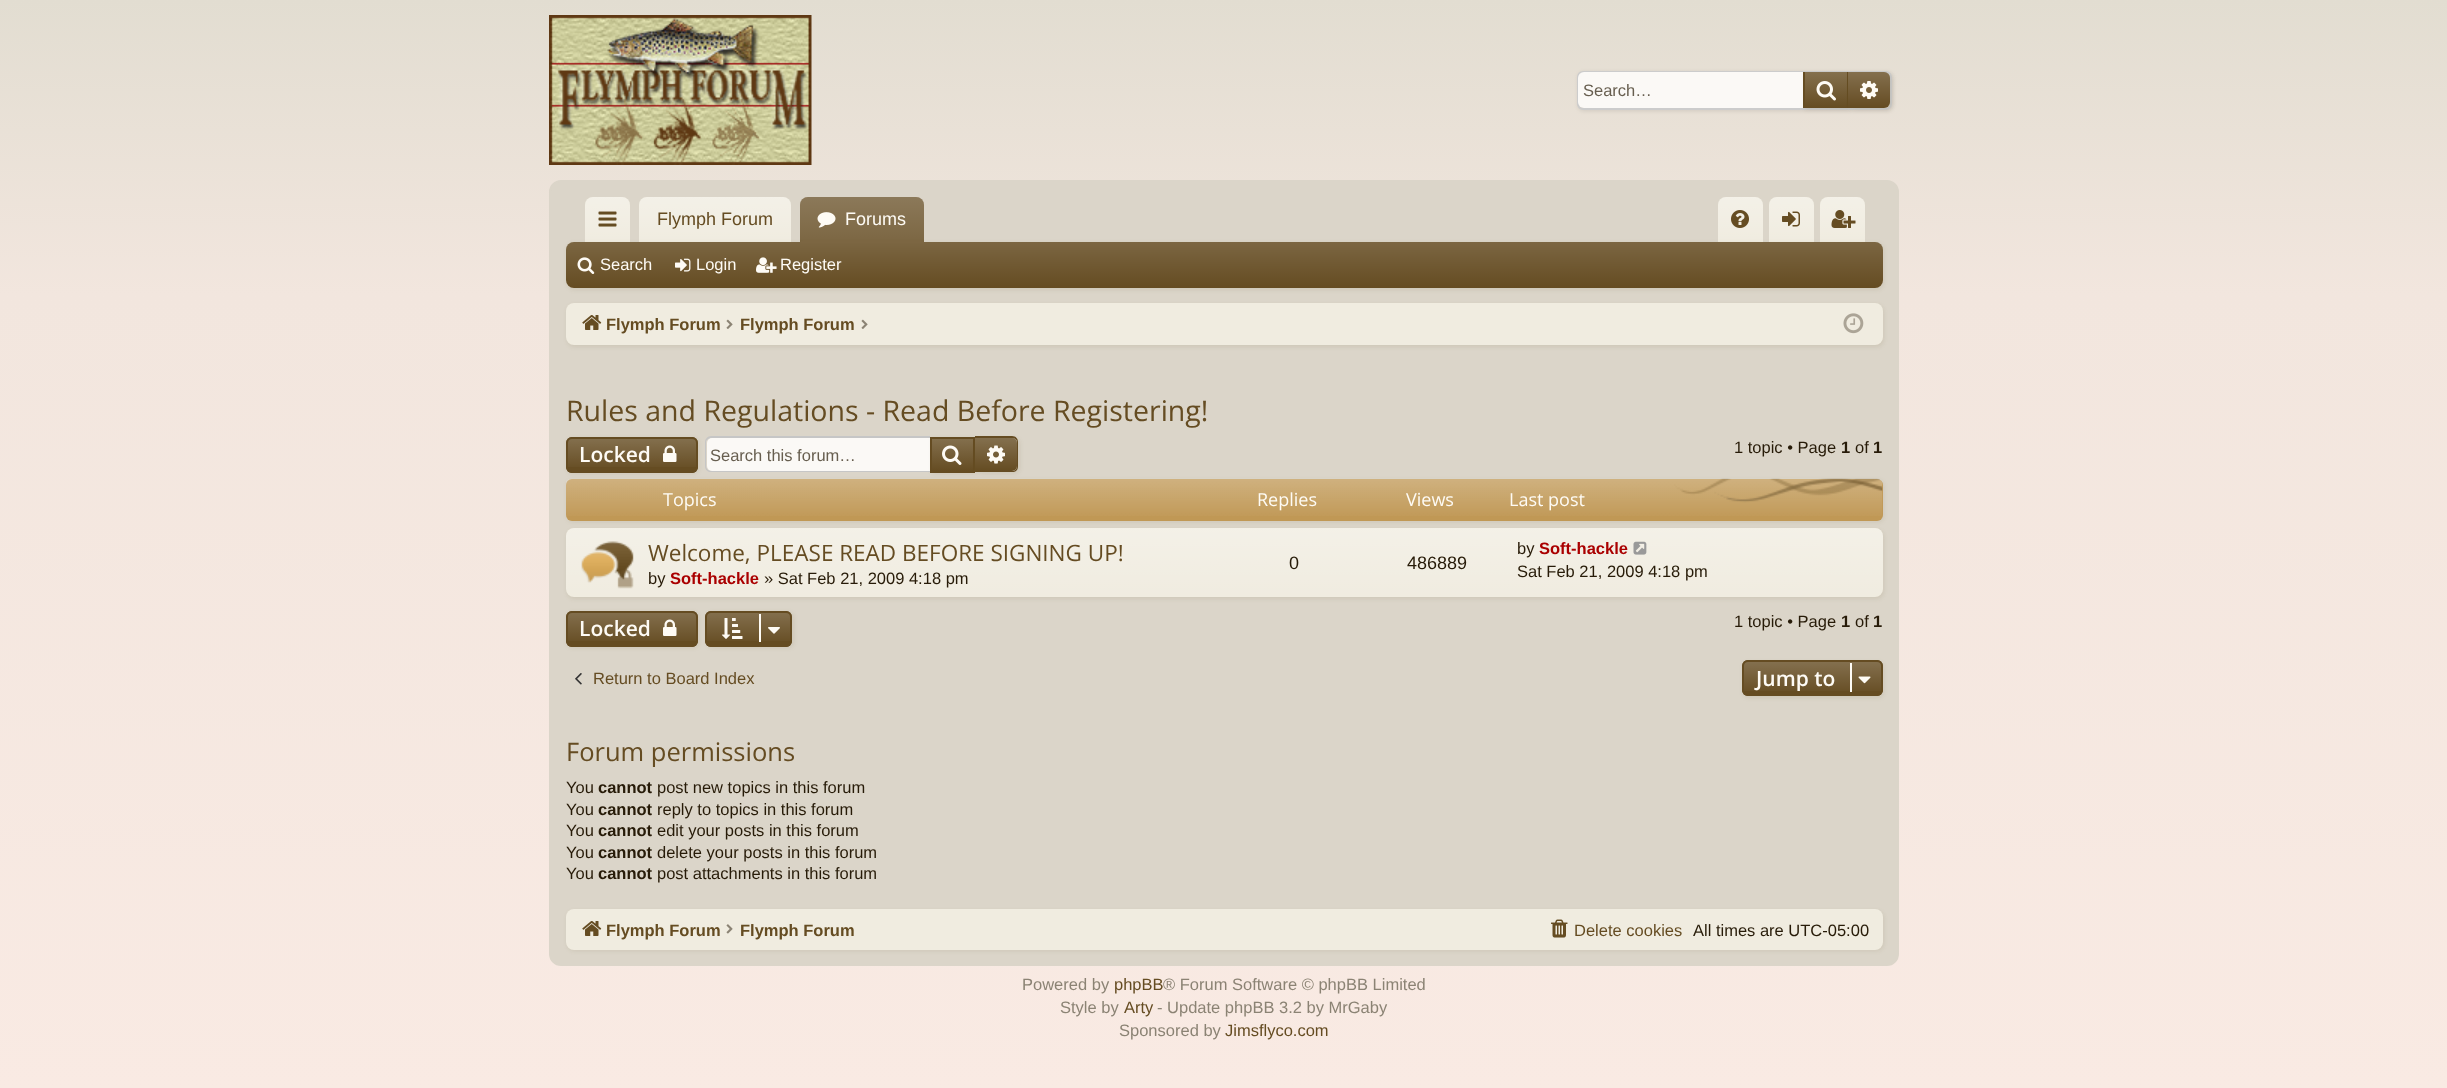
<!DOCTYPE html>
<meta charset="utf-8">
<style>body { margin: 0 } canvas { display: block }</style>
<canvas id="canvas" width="2447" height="1088"></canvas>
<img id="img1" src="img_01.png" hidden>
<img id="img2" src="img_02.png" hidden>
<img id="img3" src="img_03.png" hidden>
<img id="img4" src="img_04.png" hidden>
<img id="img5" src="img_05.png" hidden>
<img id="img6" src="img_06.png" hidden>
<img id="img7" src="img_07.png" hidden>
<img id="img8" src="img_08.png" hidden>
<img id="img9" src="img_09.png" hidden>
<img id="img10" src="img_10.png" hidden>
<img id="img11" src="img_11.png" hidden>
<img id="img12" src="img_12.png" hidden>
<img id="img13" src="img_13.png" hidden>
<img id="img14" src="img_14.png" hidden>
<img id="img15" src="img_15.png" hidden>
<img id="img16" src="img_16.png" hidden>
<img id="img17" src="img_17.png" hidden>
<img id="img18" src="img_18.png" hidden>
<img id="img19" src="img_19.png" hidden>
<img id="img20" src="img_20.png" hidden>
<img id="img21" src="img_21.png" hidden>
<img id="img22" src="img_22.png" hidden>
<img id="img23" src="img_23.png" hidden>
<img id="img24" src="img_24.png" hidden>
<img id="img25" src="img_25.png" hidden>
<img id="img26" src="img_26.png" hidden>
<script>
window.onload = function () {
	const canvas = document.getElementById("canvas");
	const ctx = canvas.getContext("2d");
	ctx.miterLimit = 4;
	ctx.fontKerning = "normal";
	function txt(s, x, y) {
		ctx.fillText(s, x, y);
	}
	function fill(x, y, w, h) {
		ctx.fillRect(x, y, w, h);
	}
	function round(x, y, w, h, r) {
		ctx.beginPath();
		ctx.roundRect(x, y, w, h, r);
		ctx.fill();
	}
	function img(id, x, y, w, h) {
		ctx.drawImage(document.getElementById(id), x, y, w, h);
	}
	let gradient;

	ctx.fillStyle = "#FFFFFF";
	fill(0, 0, 2447, 1088);
	gradient = ctx.createLinearGradient(1224, 0, 1224, 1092);
	gradient.addColorStop(0, "#E2DDD1");
	gradient.addColorStop(0.27, "#F2E6DE");
	gradient.addColorStop(1, "#F9EAE3");
	ctx.fillStyle = gradient;
	fill(0, 0, 2447, 1088);
	img("img1", 549, 15, 263, 150);
	ctx.fillStyle = "rgba(0, 0, 0, 0.1)";
	ctx.filter = "blur(2px)";
	ctx.beginPath();
	ctx.roundRect(1578, 72, 315, 39, 6);
	ctx.fill();
	ctx.filter = "none";
	ctx.beginPath();
	ctx.roundRect(1578, 72, 313, 37, 5);
	ctx.strokeStyle = "#CCCCCC";
	ctx.lineWidth = 2;
	ctx.stroke();
	ctx.fillStyle = "#FBF9F6";
	ctx.beginPath();
	ctx.roundRect(1578, 72, 225, 36, [6, 0, 0, 6]);
	ctx.fill();
	ctx.fillStyle = "rgba(101, 76, 34, 0.1)";
	ctx.filter = "blur(2px)";
	ctx.beginPath();
	ctx.rect(1805, 74, 45, 36);
	ctx.fill();
	ctx.filter = "none";
	gradient = ctx.createLinearGradient(1826, 72, 1826, 108);
	gradient.addColorStop(0, "#84704E");
	gradient.addColorStop(1, "#654C22");
	ctx.fillStyle = gradient;
	fill(1805, 72, 42, 36);
	ctx.fillStyle = "#654C22";
	fill(1847, 72, 1, 36);
	fill(1803, 72, 2, 36);
	img("img2", 1816, 81, 20, 20);
	ctx.fillStyle = "rgba(101, 76, 34, 0.1)";
	ctx.filter = "blur(2px)";
	ctx.beginPath();
	ctx.roundRect(1850, 74, 42, 36, 6);
	ctx.fill();
	ctx.filter = "none";
	ctx.fillStyle = "#654C22";
	ctx.beginPath();
	ctx.roundRect(1848, 72, 42, 36, [0, 6, 6, 0]);
	ctx.fill();
	gradient = ctx.createLinearGradient(1869, 72, 1869, 108);
	gradient.addColorStop(0, "rgba(255, 255, 255, 0.2)");
	gradient.addColorStop(1, "rgba(255, 255, 255, 0)");
	ctx.fillStyle = gradient;
	ctx.beginPath();
	ctx.roundRect(1848, 72, 42, 36, [0, 6, 6, 0]);
	ctx.fill();
	img("img3", 1860, 81, 18, 18);
	ctx.fillStyle = "#DBD5C9";
	ctx.beginPath();
	ctx.roundRect(550, 181, 1348, 784, 11);
	ctx.fill();
	ctx.strokeStyle = "#DBD5C9";
	ctx.stroke();
	ctx.fillStyle = "#F0ECE0";
	ctx.beginPath();
	ctx.roundRect(585, 197, 45, 45, [8, 8, 0, 0]);
	ctx.fill();
	gradient = ctx.createLinearGradient(608, 197, 608, 242);
	gradient.addColorStop(0, "rgba(255, 255, 255, 0.25)");
	gradient.addColorStop(1, "rgba(255, 255, 255, 0)");
	ctx.fillStyle = gradient;
	ctx.beginPath();
	ctx.roundRect(585, 197, 45, 45, [8, 8, 0, 0]);
	ctx.fill();
	img("img4", 598, 211, 19, 16);
	ctx.fillStyle = "#F0ECE0";
	ctx.beginPath();
	ctx.roundRect(639, 197, 152, 45, [8, 8, 0, 0]);
	ctx.fill();
	gradient = ctx.createLinearGradient(715, 197, 715, 242);
	gradient.addColorStop(0, "rgba(255, 255, 255, 0.25)");
	gradient.addColorStop(1, "rgba(255, 255, 255, 0)");
	ctx.fillStyle = gradient;
	ctx.beginPath();
	ctx.roundRect(639, 197, 152, 45, [8, 8, 0, 0]);
	ctx.fill();
	ctx.fillStyle = "#654C22";
	ctx.beginPath();
	ctx.roundRect(800, 197, 124, 45, [8, 8, 0, 0]);
	ctx.fill();
	gradient = ctx.createLinearGradient(862, 197, 862, 242);
	gradient.addColorStop(0, "rgba(255, 255, 255, 0.25)");
	gradient.addColorStop(1, "rgba(255, 255, 255, 0.15)");
	ctx.fillStyle = gradient;
	ctx.beginPath();
	ctx.roundRect(800, 197, 124, 45, [8, 8, 0, 0]);
	ctx.fill();
	img("img5", 817, 212, 19, 16);
	ctx.fillStyle = "#F0ECE0";
	ctx.beginPath();
	ctx.roundRect(1718, 197, 45, 45, [8, 8, 0, 0]);
	ctx.fill();
	gradient = ctx.createLinearGradient(1740, 197, 1740, 242);
	gradient.addColorStop(0, "rgba(255, 255, 255, 0.25)");
	gradient.addColorStop(1, "rgba(255, 255, 255, 0)");
	ctx.fillStyle = gradient;
	ctx.beginPath();
	ctx.roundRect(1718, 197, 45, 45, [8, 8, 0, 0]);
	ctx.fill();
	ctx.fillStyle = "#F0ECE0";
	ctx.beginPath();
	ctx.roundRect(1769, 197, 45, 45, [8, 8, 0, 0]);
	ctx.fill();
	gradient = ctx.createLinearGradient(1791, 197, 1791, 242);
	gradient.addColorStop(0, "rgba(255, 255, 255, 0.25)");
	gradient.addColorStop(1, "rgba(255, 255, 255, 0)");
	ctx.fillStyle = gradient;
	ctx.beginPath();
	ctx.roundRect(1769, 197, 45, 45, [8, 8, 0, 0]);
	ctx.fill();
	ctx.fillStyle = "#F0ECE0";
	ctx.beginPath();
	ctx.roundRect(1820, 197, 45, 45, [8, 8, 0, 0]);
	ctx.fill();
	gradient = ctx.createLinearGradient(1842, 197, 1842, 242);
	gradient.addColorStop(0, "rgba(255, 255, 255, 0.25)");
	gradient.addColorStop(1, "rgba(255, 255, 255, 0)");
	ctx.fillStyle = gradient;
	ctx.beginPath();
	ctx.roundRect(1820, 197, 45, 45, [8, 8, 0, 0]);
	ctx.fill();
	ctx.fillStyle = "rgba(101, 76, 34, 0.1)";
	ctx.filter = "blur(2px)";
	ctx.beginPath();
	ctx.roundRect(567, 243, 1317, 47, 8);
	ctx.fill();
	ctx.filter = "none";
	ctx.fillStyle = "#654C22";
	round(566, 242, 1317, 46, 8);
	gradient = ctx.createLinearGradient(1224, 241, 1224, 288);
	gradient.addColorStop(0, "rgba(255, 255, 255, 0.15)");
	gradient.addColorStop(1, "rgba(255, 255, 255, 0)");
	ctx.fillStyle = gradient;
	round(566, 242, 1317, 46, 8);
	ctx.fillStyle = "#654C22";
	ctx.beginPath();
	ctx.roundRect(800, 240, 124, 3, [3, 3, 0, 0]);
	ctx.fill();
	ctx.fillStyle = "rgba(255, 255, 255, 0.15)";
	ctx.beginPath();
	ctx.roundRect(800, 240, 124, 3, [3, 3, 0, 0]);
	ctx.fill();
	img("img6", 1731, 210, 18, 18);
	img("img7", 1782, 211, 18, 16);
	img("img8", 1831, 210, 25, 18);
	img("img9", 577, 257, 18, 17);
	img("img10", 675, 258, 16, 14);
	img("img11", 756, 257, 21, 16);
	ctx.fillStyle = "rgba(101, 76, 34, 0.1)";
	ctx.filter = "blur(2px)";
	ctx.beginPath();
	ctx.roundRect(567, 305, 1317, 42, 8);
	ctx.fill();
	ctx.filter = "none";
	ctx.fillStyle = "#F0ECE0";
	round(566, 303, 1317, 42, 8);
	img("img12", 582, 315, 20, 15);
	img("img13", 726, 319, 7, 10);
	img("img13", 861, 319, 7, 10);
	img("img14", 1843, 313, 21, 21);
	ctx.fillStyle = "rgba(101, 76, 34, 0.1)";
	ctx.filter = "blur(2px)";
	ctx.beginPath();
	ctx.roundRect(567, 438, 132, 36, 6);
	ctx.fill();
	ctx.filter = "none";
	ctx.fillStyle = "#654C22";
	round(566, 437, 132, 36, 6);
	ctx.save();
	ctx.beginPath();
	ctx.roundRect(566, 437, 132, 36, 6);
	ctx.clip();
	gradient = ctx.createLinearGradient(632, 438, 632, 471);
	gradient.addColorStop(0, "rgba(255, 255, 255, 0.2)");
	gradient.addColorStop(1, "rgba(255, 255, 255, 0)");
	ctx.fillStyle = gradient;
	fill(566, 438, 132, 29);
	ctx.restore();
	ctx.beginPath();
	ctx.roundRect(567, 438, 130, 34, 5);
	ctx.strokeStyle = "#654C22";
	ctx.stroke();
	img("img15", 663, 445, 14, 17);
	ctx.fillStyle = "#FBF9F6";
	ctx.beginPath();
	ctx.roundRect(707, 438, 223, 33, [5, 0, 0, 5]);
	ctx.fill();
	ctx.fillStyle = "#C6C6C6";
	ctx.beginPath();
	ctx.moveTo(711, 436);
	ctx.lineTo(930, 436);
	ctx.lineTo(930, 472);
	ctx.lineTo(711, 472);
	ctx.bezierCurveTo(708, 472, 705, 470, 705, 466);
	ctx.lineTo(705, 442);
	ctx.bezierCurveTo(705, 439, 708, 436, 711, 436);
	ctx.closePath();
	ctx.moveTo(711, 438);
	ctx.lineTo(930, 438);
	ctx.lineTo(930, 471);
	ctx.lineTo(711, 471);
	ctx.bezierCurveTo(709, 471, 706, 469, 706, 466);
	ctx.lineTo(706, 442);
	ctx.bezierCurveTo(706, 440, 709, 438, 711, 438);
	ctx.closePath();
	ctx.fill("evenodd");
	ctx.fillStyle = "rgba(101, 76, 34, 0.1)";
	ctx.filter = "blur(2px)";
	ctx.beginPath();
	ctx.rect(932, 438, 45, 36);
	ctx.fill();
	ctx.filter = "none";
	gradient = ctx.createLinearGradient(953, 438, 953, 471);
	gradient.addColorStop(0, "#84704E");
	gradient.addColorStop(1, "#654C22");
	ctx.fillStyle = gradient;
	fill(932, 439, 41, 32);
	ctx.strokeRect(931, 438, 43, 34);
	img("img16", 942, 445, 20, 20);
	ctx.fillStyle = "rgba(101, 76, 34, 0.1)";
	ctx.filter = "blur(2px)";
	ctx.beginPath();
	ctx.roundRect(977, 438, 43, 36, 6);
	ctx.fill();
	ctx.filter = "none";
	ctx.fillStyle = "#654C22";
	ctx.beginPath();
	ctx.roundRect(975, 438, 42, 33, [0, 5, 5, 0]);
	ctx.fill();
	gradient = ctx.createLinearGradient(996, 438, 996, 471);
	gradient.addColorStop(0, "rgba(255, 255, 255, 0.2)");
	gradient.addColorStop(1, "rgba(255, 255, 255, 0)");
	ctx.fillStyle = gradient;
	ctx.beginPath();
	ctx.roundRect(975, 438, 42, 33, [0, 5, 5, 0]);
	ctx.fill();
	ctx.fillStyle = "#654C22";
	ctx.beginPath();
	ctx.moveTo(975, 436);
	ctx.lineTo(1012, 436);
	ctx.bezierCurveTo(1016, 436, 1018, 439, 1018, 442);
	ctx.lineTo(1018, 466);
	ctx.bezierCurveTo(1018, 470, 1016, 472, 1012, 472);
	ctx.lineTo(975, 472);
	ctx.closePath();
	ctx.moveTo(975, 438);
	ctx.lineTo(1012, 438);
	ctx.bezierCurveTo(1015, 438, 1017, 440, 1017, 442);
	ctx.lineTo(1017, 466);
	ctx.bezierCurveTo(1017, 469, 1015, 471, 1012, 471);
	ctx.lineTo(975, 471);
	ctx.closePath();
	ctx.fill("evenodd");
	img("img17", 987, 445, 18, 19);
	ctx.fillStyle = "rgba(101, 76, 34, 0.1)";
	ctx.filter = "blur(2px)";
	ctx.beginPath();
	ctx.roundRect(567, 530, 1317, 69, 8);
	ctx.fill();
	ctx.filter = "none";
	ctx.fillStyle = "#F0ECE0";
	round(566, 528, 1317, 69, 8);
	gradient = ctx.createLinearGradient(1224, 528, 1224, 597);
	gradient.addColorStop(0, "rgba(255, 255, 255, 0.25)");
	gradient.addColorStop(1, "rgba(255, 255, 255, 0)");
	ctx.fillStyle = gradient;
	round(566, 528, 1317, 69, 8);
	ctx.fillStyle = "rgba(101, 76, 34, 0.1)";
	ctx.filter = "blur(2px)";
	ctx.beginPath();
	ctx.roundRect(567, 480, 1317, 42, 6);
	ctx.fill();
	ctx.filter = "none";
	ctx.fillStyle = "#C09855";
	round(566, 479, 1317, 42, 6);
	img("img18", 566, 478, 1317, 38);
	img("img19", 581, 541, 53, 48);
	img("img20", 1633, 541, 14, 14);
	ctx.fillStyle = "rgba(101, 76, 34, 0.1)";
	ctx.filter = "blur(2px)";
	ctx.beginPath();
	ctx.roundRect(567, 612, 132, 36, 6);
	ctx.fill();
	ctx.filter = "none";
	ctx.fillStyle = "#654C22";
	round(566, 611, 132, 36, 6);
	ctx.save();
	ctx.beginPath();
	ctx.roundRect(566, 611, 132, 36, 6);
	ctx.clip();
	gradient = ctx.createLinearGradient(632, 612, 632, 645);
	gradient.addColorStop(0, "rgba(255, 255, 255, 0.2)");
	gradient.addColorStop(1, "rgba(255, 255, 255, 0)");
	ctx.fillStyle = gradient;
	fill(566, 612, 132, 29);
	ctx.restore();
	ctx.beginPath();
	ctx.roundRect(567, 612, 130, 34, 5);
	ctx.stroke();
	img("img15", 663, 619, 14, 17);
	ctx.fillStyle = "rgba(101, 76, 34, 0.1)";
	ctx.filter = "blur(2px)";
	ctx.beginPath();
	ctx.roundRect(707, 612, 87, 36, 6);
	ctx.fill();
	ctx.filter = "none";
	ctx.fillStyle = "#654C22";
	round(705, 611, 87, 36, 6);
	ctx.save();
	ctx.beginPath();
	ctx.roundRect(705, 611, 87, 36, 6);
	ctx.clip();
	gradient = ctx.createLinearGradient(749, 612, 749, 645);
	gradient.addColorStop(0, "rgba(255, 255, 255, 0.2)");
	gradient.addColorStop(1, "rgba(255, 255, 255, 0)");
	ctx.fillStyle = gradient;
	fill(705, 612, 87, 29);
	ctx.restore();
	ctx.beginPath();
	ctx.roundRect(706, 612, 85, 34, 5);
	ctx.stroke();
	img("img21", 721, 618, 22, 21);
	ctx.fillStyle = "#FEFBF5";
	fill(759, 614, 2, 28);
	img("img22", 768, 627, 12, 7);
	img("img23", 575, 673, 7, 12);
	ctx.fillStyle = "rgba(101, 76, 34, 0.1)";
	ctx.filter = "blur(2px)";
	ctx.beginPath();
	ctx.roundRect(1743, 662, 141, 36, 6);
	ctx.fill();
	ctx.filter = "none";
	ctx.fillStyle = "#654C22";
	round(1742, 660, 141, 36, 6);
	ctx.save();
	ctx.beginPath();
	ctx.roundRect(1742, 660, 141, 36, 6);
	ctx.clip();
	gradient = ctx.createLinearGradient(1812, 662, 1812, 695);
	gradient.addColorStop(0, "rgba(255, 255, 255, 0.2)");
	gradient.addColorStop(1, "rgba(255, 255, 255, 0)");
	ctx.fillStyle = gradient;
	fill(1742, 662, 141, 29);
	ctx.restore();
	ctx.beginPath();
	ctx.roundRect(1743, 661, 139, 34, 5);
	ctx.stroke();
	ctx.fillStyle = "#FEFBF5";
	fill(1850, 663, 2, 29);
	img("img24", 1858, 676, 13, 8);
	ctx.fillStyle = "rgba(101, 76, 34, 0.1)";
	ctx.filter = "blur(2px)";
	ctx.beginPath();
	ctx.roundRect(567, 911, 1317, 40, 8);
	ctx.fill();
	ctx.filter = "none";
	ctx.fillStyle = "#F0ECE0";
	round(566, 909, 1317, 41, 8);
	img("img12", 582, 921, 20, 15);
	img("img25", 726, 924, 7, 10);
	img("img26", 1551, 919, 17, 19);
	ctx.font = "16.5px Liberation Sans";
	ctx.fillStyle = "#675E4F";
	txt("Search…", 1583, 96);
	ctx.font = "18px Liberation Sans";
	ctx.fillStyle = "#654C22";
	txt("Flymph Forum", 657, 225);
	ctx.fillStyle = "#FEFBF5";
	txt("Forums", 845, 225);
	ctx.font = "16.5px Liberation Sans";
	txt("Search", 600, 270);
	txt("Login", 696, 270);
	txt("Register", 780, 270);
	ctx.font = "bold 16.5px Liberation Sans";
	ctx.fillStyle = "#654C22";
	txt("Flymph Forum", 606, 330);
	txt("Flymph Forum", 740, 330);
	ctx.font = "28.5px Open Sans";
	txt("Rules and Regulations - Read Before Registering!", 566, 421);
	ctx.font = "600 21px Open Sans";
	ctx.fillStyle = "#FEFBF5";
	txt("Locked", 579, 462);
	ctx.font = "16.5px Liberation Sans";
	ctx.fillStyle = "#675E4F";
	txt("Search this forum…", 710, 461);
	ctx.fillStyle = "#271B08";
	txt("1 topic • Page", 1734, 453);
	ctx.font = "bold 16.5px Liberation Sans";
	txt("1", 1841, 453);
	ctx.font = "16.5px Liberation Sans";
	txt("of", 1855, 453);
	ctx.font = "bold 16.5px Liberation Sans";
	txt("1", 1873, 453);
	ctx.font = "18px Open Sans";
	ctx.fillStyle = "#FEFBF5";
	txt("Topics", 663, 506);
	txt("Replies", 1257, 506);
	txt("Views", 1406, 506);
	txt("Last post", 1509, 506);
	ctx.font = "22.5px Open Sans";
	ctx.fillStyle = "#654C22";
	txt("Welcome, PLEASE READ BEFORE SIGNING UP!", 648, 561);
	ctx.font = "16.5px Liberation Sans";
	ctx.fillStyle = "#271B08";
	txt("by", 648, 584);
	ctx.font = "bold 16.5px Liberation Sans";
	ctx.fillStyle = "#AA0000";
	txt("Soft-hackle", 670, 584);
	ctx.font = "16.5px Liberation Sans";
	ctx.fillStyle = "#271B08";
	txt("» Sat Feb 21, 2009 4:18 pm", 764, 584);
	ctx.font = "18px Liberation Sans";
	txt("0", 1289, 569);
	txt("486889", 1407, 569);
	ctx.font = "16.5px Liberation Sans";
	txt("by", 1517, 554);
	ctx.font = "bold 16.5px Liberation Sans";
	ctx.fillStyle = "#AA0000";
	txt("Soft-hackle", 1539, 554);
	ctx.font = "16.5px Liberation Sans";
	ctx.fillStyle = "#271B08";
	txt("Sat Feb 21, 2009 4:18 pm", 1517, 577);
	ctx.font = "600 21px Open Sans";
	ctx.fillStyle = "#FEFBF5";
	txt("Locked", 579, 636);
	ctx.font = "16.5px Liberation Sans";
	ctx.fillStyle = "#271B08";
	txt("1 topic • Page", 1734, 627);
	ctx.font = "bold 16.5px Liberation Sans";
	txt("1", 1841, 627);
	ctx.font = "16.5px Liberation Sans";
	txt("of", 1855, 627);
	ctx.font = "bold 16.5px Liberation Sans";
	txt("1", 1873, 627);
	ctx.font = "16.5px Liberation Sans";
	ctx.fillStyle = "#654C22";
	txt("Return to Board Index", 593, 684);
	ctx.font = "600 21px Open Sans";
	ctx.fillStyle = "#FEFBF5";
	txt("Jump to", 1756, 686);
	ctx.font = "25.5px Open Sans";
	ctx.fillStyle = "#654C22";
	txt("Forum permissions", 566, 761);
	ctx.font = "16.5px Liberation Sans";
	ctx.fillStyle = "#271B08";
	txt("You", 566, 793);
	ctx.font = "bold 16.5px Liberation Sans";
	txt("cannot", 598, 793);
	ctx.font = "16.5px Liberation Sans";
	txt("post new topics in this forum", 657, 793);
	txt("You", 566, 815);
	ctx.font = "bold 16.5px Liberation Sans";
	txt("cannot", 598, 815);
	ctx.font = "16.5px Liberation Sans";
	txt("reply to topics in this forum", 657, 815);
	txt("You", 566, 836);
	ctx.font = "bold 16.5px Liberation Sans";
	txt("cannot", 598, 836);
	ctx.font = "16.5px Liberation Sans";
	txt("edit your posts in this forum", 657, 836);
	txt("You", 566, 858);
	ctx.font = "bold 16.5px Liberation Sans";
	txt("cannot", 598, 858);
	ctx.font = "16.5px Liberation Sans";
	txt("delete your posts in this forum", 657, 858);
	txt("You", 566, 879);
	ctx.font = "bold 16.5px Liberation Sans";
	txt("cannot", 598, 879);
	ctx.font = "16.5px Liberation Sans";
	txt("post attachments in this forum", 657, 879);
	ctx.font = "bold 16.5px Liberation Sans";
	ctx.fillStyle = "#654C22";
	txt("Flymph Forum", 606, 936);
	txt("Flymph Forum", 740, 936);
	ctx.font = "16.5px Liberation Sans";
	txt("Delete cookies", 1574, 936);
	ctx.fillStyle = "#271B08";
	txt("All times are UTC-05:00", 1693, 936);
	ctx.fillStyle = "#8B8374";
	txt("Powered by", 1022, 990);
	ctx.fillStyle = "#654C22";
	txt("phpBB", 1114, 990);
	ctx.fillStyle = "#8B8374";
	txt("® Forum Software © phpBB Limited", 1163, 990);
	txt("Style by", 1060, 1013);
	ctx.fillStyle = "#654C22";
	txt("Arty", 1124, 1013);
	ctx.fillStyle = "#8B8374";
	txt("- Update phpBB 3.2 by MrGaby", 1157, 1013);
	txt("Sponsored by", 1119, 1036);
	ctx.fillStyle = "#654C22";
	txt("Jimsflyco.com", 1225, 1036);
};
</script>
